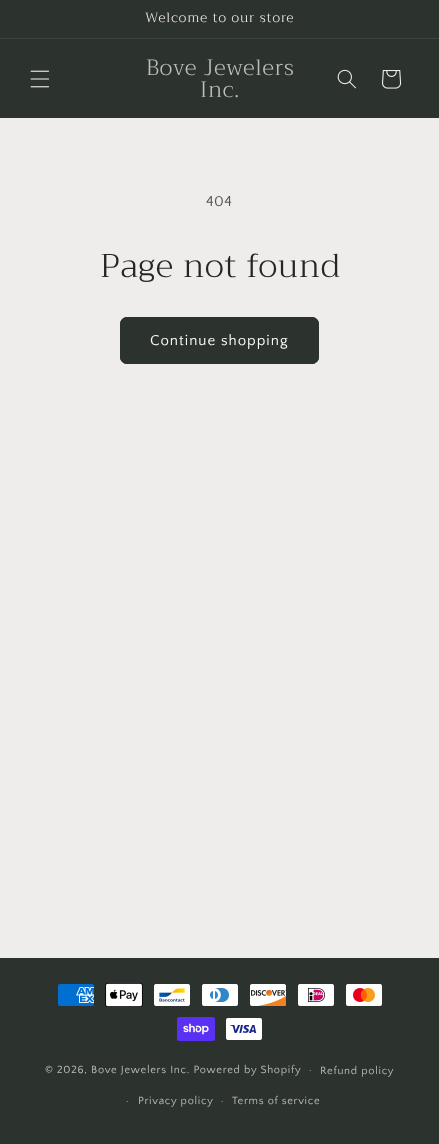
<!DOCTYPE html>
<meta charset="utf-8">
<style>body { margin: 0 } canvas { display: block }</style>
<canvas id="canvas" width="439" height="1144"></canvas>
<img id="img1" src="img_01.png" hidden>
<img id="img2" src="img_02.png" hidden>
<img id="img3" src="img_03.png" hidden>
<img id="img4" src="img_04.png" hidden>
<img id="img5" src="img_05.png" hidden>
<img id="img6" src="img_06.png" hidden>
<img id="img7" src="img_07.png" hidden>
<img id="img8" src="img_08.png" hidden>
<img id="img9" src="img_09.png" hidden>
<img id="img10" src="img_10.png" hidden>
<img id="img11" src="img_11.png" hidden>
<img id="img12" src="img_12.png" hidden>
<script>
window.onload = function () {
	const canvas = document.getElementById("canvas");
	const ctx = canvas.getContext("2d");
	ctx.miterLimit = 4;
	ctx.fontKerning = "normal";
	function txt(s, x, y) {
		ctx.fillText(s, x, y);
	}
	function fill(x, y, w, h) {
		ctx.fillRect(x, y, w, h);
	}
	function round(x, y, w, h, r) {
		ctx.beginPath();
		ctx.roundRect(x, y, w, h, r);
		ctx.fill();
	}
	function img(id, x, y, w, h) {
		ctx.drawImage(document.getElementById(id), x, y, w, h);
	}

	ctx.fillStyle = "#EFECEC";
	fill(0, 0, 439, 1144);
	ctx.fillStyle = "#2C332F";
	fill(0, 0, 439, 38);
	ctx.fillStyle = "#3C423E";
	fill(0, 38, 439, 1);
	ctx.fillStyle = "#2C332F";
	fill(0, 39, 439, 79);
	img("img1", 30, 70, 20, 18);
	img("img2", 337, 69, 19, 20);
	img("img3", 382, 70, 20, 19);
	round(120, 317, 199, 47, 7);
	ctx.beginPath();
	ctx.roundRect(120.5, 317.5, 198, 46, 6.5);
	ctx.strokeStyle = "#2C332F";
	ctx.stroke();
	fill(0, 958, 439, 186);
	img("img4", 58, 984, 36, 22);
	img("img5", 105, 983, 38, 24);
	img("img6", 154, 984, 36, 22);
	img("img7", 202, 984, 36, 22);
	img("img8", 250, 984, 36, 22);
	img("img9", 298, 984, 36, 22);
	img("img10", 346, 984, 36, 22);
	img("img11", 177, 1017, 38, 24);
	img("img12", 226, 1018, 36, 22);
	ctx.letterSpacing = "1px";
	ctx.font = "300 13.25px Trirong";
	ctx.fillStyle = "#EFECEC";
	txt("Welcome to our store", 145, 22);
	ctx.letterSpacing = "0.7px";
	ctx.font = "300 22px Trirong";
	ctx.fillStyle = "#BEBEBD";
	txt("Bove Jewelers", 146, 75);
	txt("Inc.", 200, 97);
	ctx.letterSpacing = "0.5px";
	ctx.font = "15px Quattrocento Sans";
	ctx.fillStyle = "#585757";
	txt("404", 206, 206);
	ctx.letterSpacing = "0.7px";
	ctx.font = "300 33px Trirong";
	ctx.fillStyle = "#252525";
	txt("Page not found", 100, 277);
	ctx.letterSpacing = "1px";
	ctx.font = "15px Quattrocento Sans";
	ctx.fillStyle = "#FFFFFF";
	txt("Continue shopping", 150, 345);
	ctx.letterSpacing = "0.7px";
	ctx.font = "11px Quattrocento Sans";
	ctx.fillStyle = "#BEBEBD";
	txt("© 2026, Bove Jewelers Inc. Powered by Shopify", 45, 1073);
	ctx.font = "10px Quattrocento Sans";
	txt("·", 309, 1073);
	ctx.font = "11px Quattrocento Sans";
	txt("Refund policy", 320, 1074);
	ctx.font = "10px Quattrocento Sans";
	txt("·", 126, 1104);
	ctx.font = "11px Quattrocento Sans";
	txt("Privacy policy", 138, 1104);
	ctx.font = "10px Quattrocento Sans";
	txt("·", 221, 1104);
	ctx.font = "11px Quattrocento Sans";
	txt("Terms of service", 232, 1104);
};
</script>
